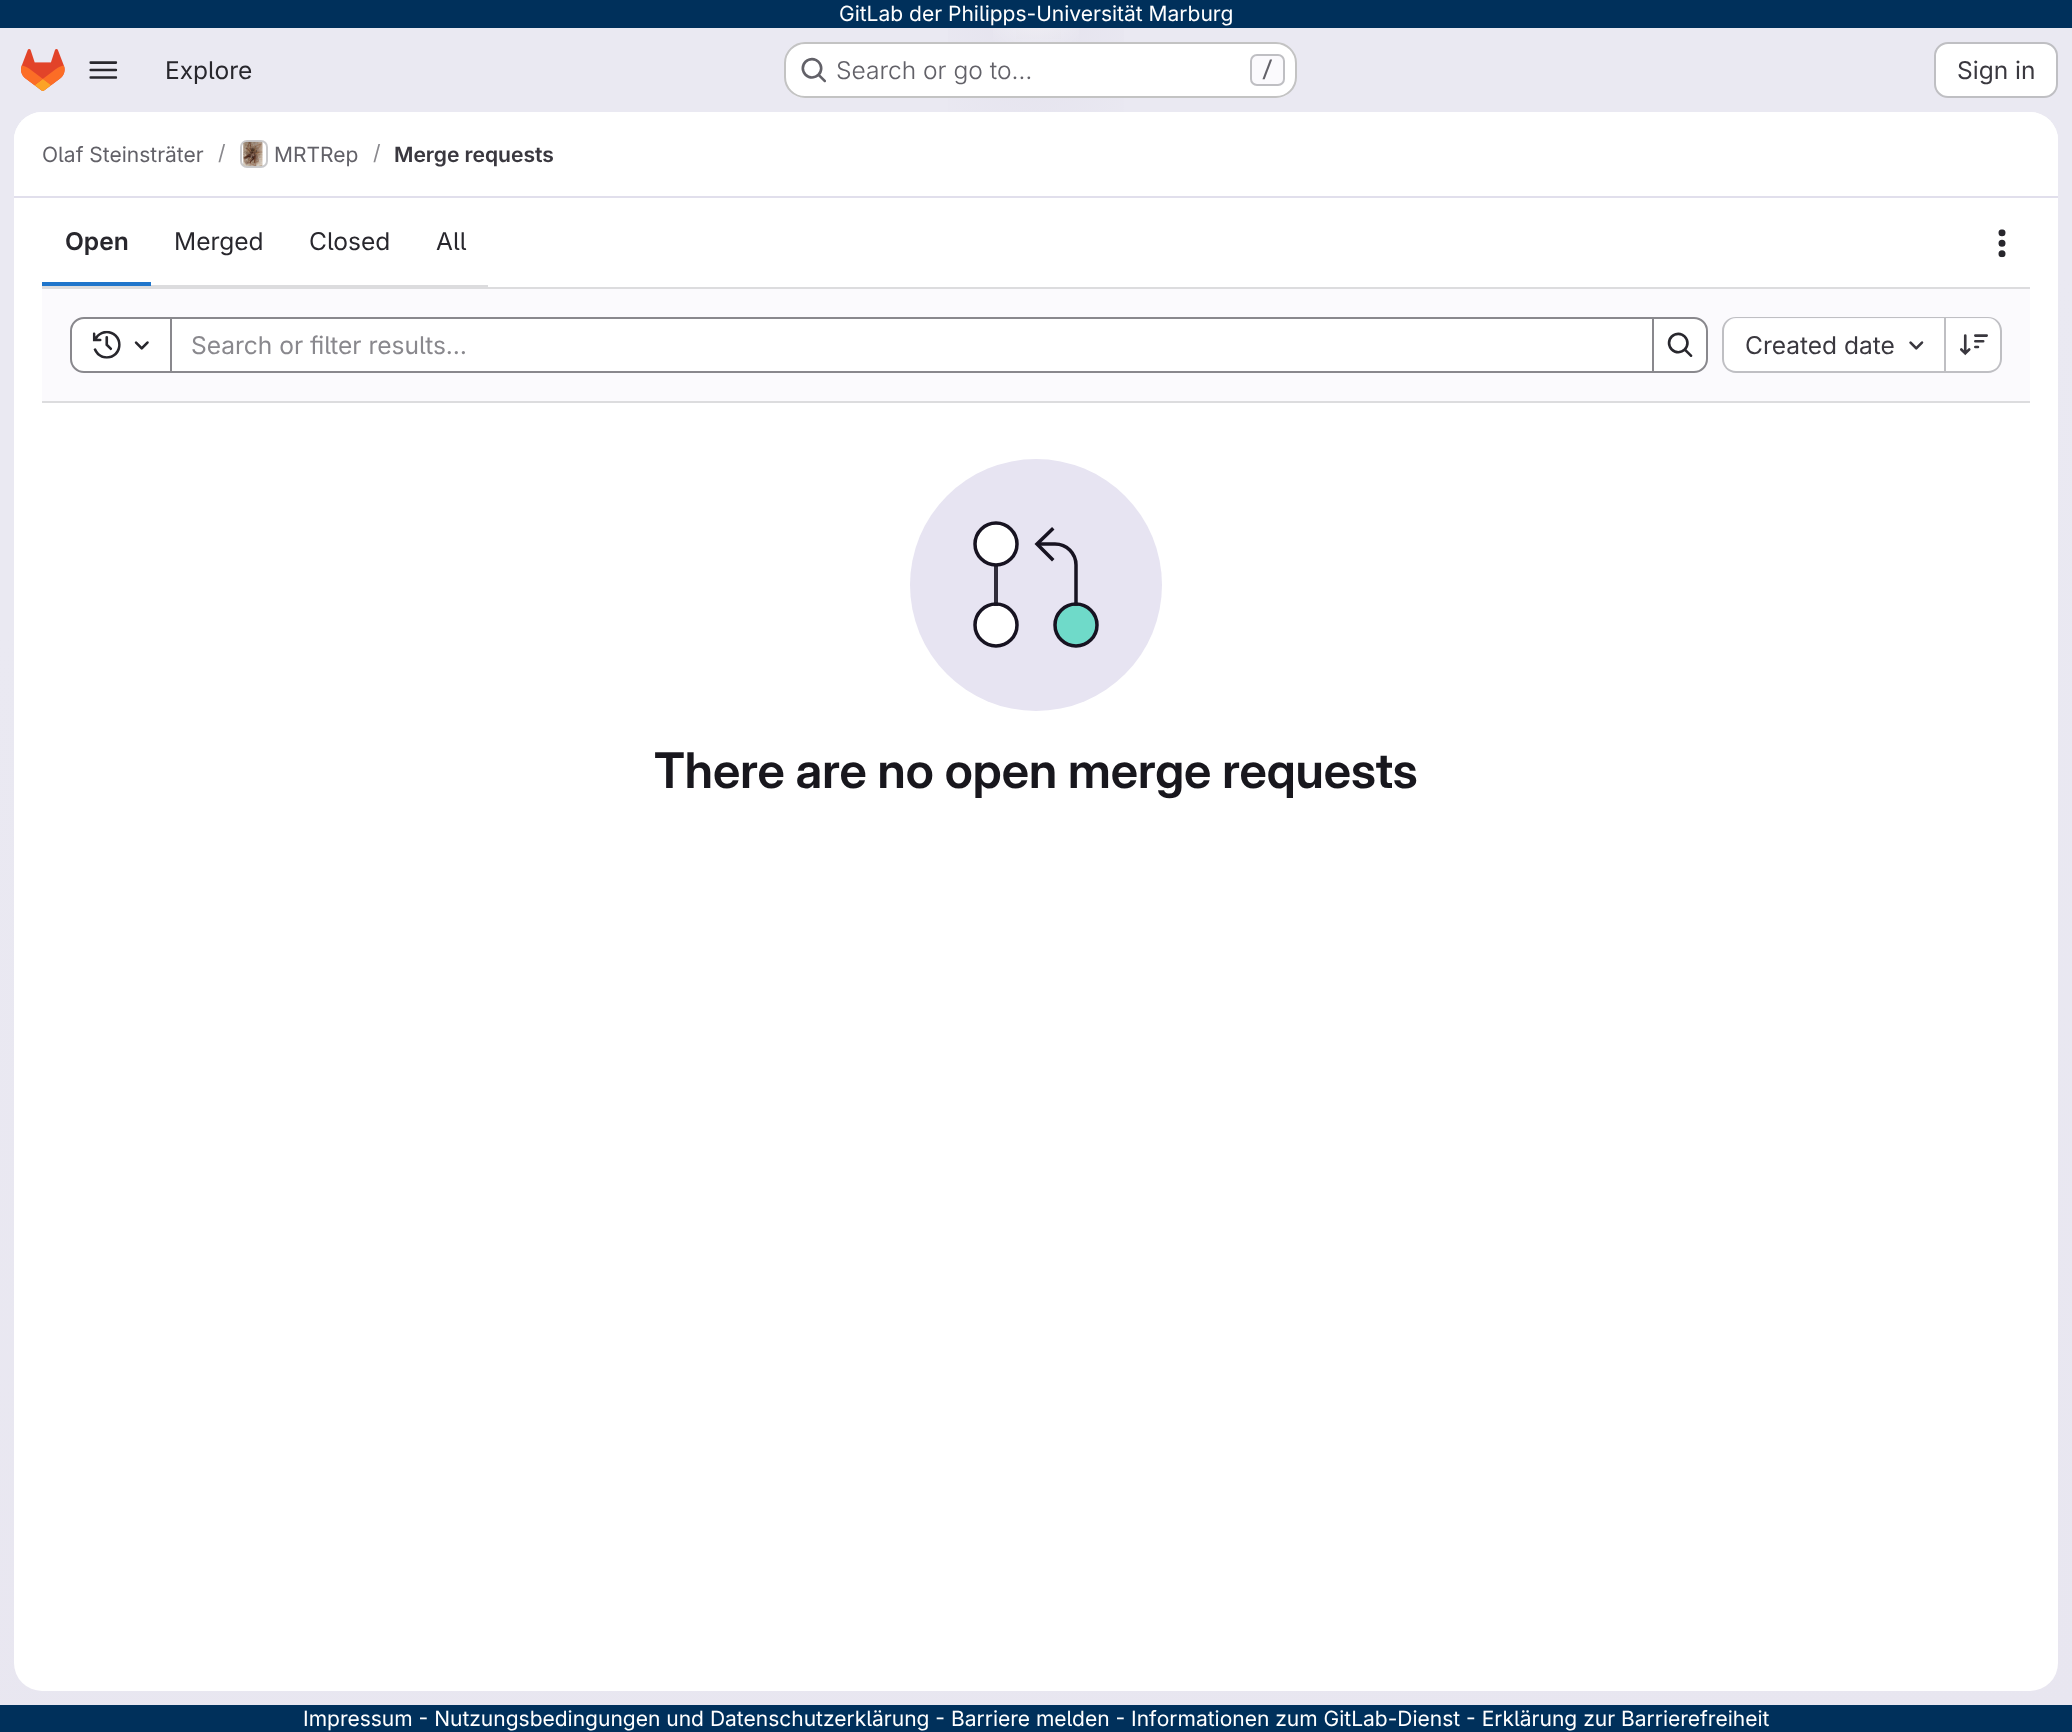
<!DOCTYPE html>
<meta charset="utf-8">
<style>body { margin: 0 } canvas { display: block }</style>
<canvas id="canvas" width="2072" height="1732"></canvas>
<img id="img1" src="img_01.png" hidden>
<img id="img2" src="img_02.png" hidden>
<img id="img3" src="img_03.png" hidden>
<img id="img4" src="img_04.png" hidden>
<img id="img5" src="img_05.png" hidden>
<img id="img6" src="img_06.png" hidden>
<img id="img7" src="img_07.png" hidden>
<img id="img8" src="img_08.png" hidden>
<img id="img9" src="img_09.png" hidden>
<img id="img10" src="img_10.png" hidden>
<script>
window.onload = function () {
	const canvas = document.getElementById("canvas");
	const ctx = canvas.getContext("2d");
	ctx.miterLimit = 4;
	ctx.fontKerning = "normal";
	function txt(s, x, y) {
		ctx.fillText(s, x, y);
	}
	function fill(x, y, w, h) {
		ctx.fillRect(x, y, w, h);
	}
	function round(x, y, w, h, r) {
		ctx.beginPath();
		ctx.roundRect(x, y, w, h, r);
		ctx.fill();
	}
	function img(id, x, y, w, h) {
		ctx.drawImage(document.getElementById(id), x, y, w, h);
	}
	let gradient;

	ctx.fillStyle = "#FFFFFF";
	fill(0, 0, 2072, 1732);
	gradient = ctx.createLinearGradient(1215, 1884, 857, -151);
	gradient.addColorStop(0, "#E8E6F0");
	gradient.addColorStop(0.7, "#EAE9F2");
	ctx.fillStyle = gradient;
	fill(0, 28, 2072, 1677);
	gradient = ctx.createRadialGradient(1036, 0, 0, 1036, 0, 1036);
	gradient.addColorStop(0, "#E4E2ED");
	gradient.addColorStop(0.12, "rgba(228, 226, 237, 0)");
	ctx.fillStyle = gradient;
	ctx.beginPath();
	ctx.rect(948, 28, 176, 84);
	ctx.save();
	ctx.clip();
	ctx.scale(1, 1733 / 1036);
	ctx.fillRect(0, 0, 2072, 1036);
	ctx.restore();
	gradient = ctx.createRadialGradient(1036, 0, 0, 1036, 0, 1036);
	gradient.addColorStop(0, "#E4E2EC");
	gradient.addColorStop(0.08, "rgba(228, 226, 236, 0)");
	ctx.fillStyle = gradient;
	ctx.beginPath();
	ctx.rect(1016, 29, 45, 10);
	ctx.save();
	ctx.clip();
	ctx.scale(1, 1733 / 1036);
	ctx.fillRect(0, 0, 2072, 1036);
	ctx.restore();
	gradient = ctx.createRadialGradient(1036, 0, 0, 1036, 0, 2019);
	gradient.addColorStop(0, "rgba(255, 255, 255, 0.6)");
	gradient.addColorStop(0.03, "rgba(255, 255, 255, 0)");
	ctx.fillStyle = gradient;
	fill(993, 28, 86, 14);
	ctx.fillStyle = "#00305B";
	fill(0, 0, 2072, 28);
	img("img1", 21, 49, 44, 42);
	img("img2", 89, 61, 29, 18);
	ctx.fillStyle = "#FFFFFF";
	round(784, 42, 513, 56, 21);
	ctx.beginPath();
	ctx.roundRect(785, 43, 511, 54, 20);
	ctx.strokeStyle = "rgba(5, 5, 6, 0.24)";
	ctx.lineWidth = 2;
	ctx.stroke();
	img("img3", 801, 57, 25, 26);
	ctx.fillStyle = "#FBFAFD";
	ctx.beginPath();
	ctx.roundRect(1251, 55, 33, 30, 6);
	ctx.fill();
	ctx.strokeStyle = "#BFBFC3";
	ctx.stroke();
	ctx.fillStyle = "#FFFFFF";
	ctx.beginPath();
	ctx.roundRect(1935, 43, 122, 54, 13);
	ctx.fill();
	ctx.stroke();
	round(14, 112, 2044, 1579, 28);
	ctx.beginPath();
	ctx.roundRect(14, 112, 2044, 86, [28, 28, 0, 0]);
	ctx.fill();
	ctx.fillStyle = "#E1DFEC";
	fill(14, 196, 2044, 2);
	ctx.beginPath();
	ctx.roundRect(241, 141, 26, 26, 6);
	ctx.strokeStyle = "#DCDCDE";
	ctx.stroke();
	img("img4", 243, 141, 20, 26);
	ctx.beginPath();
	ctx.roundRect(241, 141, 26, 26, 6);
	ctx.strokeStyle = "rgba(5, 5, 6, 0.08)";
	ctx.stroke();
	ctx.fillStyle = "#DCDCDE";
	fill(42, 287, 1988, 2);
	fill(42, 285, 446, 2);
	ctx.fillStyle = "#1F75CB";
	fill(42, 282, 109, 4);
	img("img5", 1998, 229, 8, 29);
	ctx.fillStyle = "#FBFAFD";
	fill(42, 289, 1988, 112);
	ctx.fillStyle = "#DCDCDE";
	fill(42, 401, 1988, 2);
	ctx.fillStyle = "#FFFFFF";
	ctx.beginPath();
	ctx.rect(171, 318, 1482, 54);
	ctx.fill();
	ctx.strokeStyle = "#89888D";
	ctx.stroke();
	ctx.beginPath();
	ctx.roundRect(71, 318, 100, 54, [13, 0, 0, 13]);
	ctx.fill();
	ctx.stroke();
	img("img6", 92, 330, 29, 29);
	img("img7", 134, 341, 15, 9);
	ctx.beginPath();
	ctx.roundRect(1653, 318, 54, 54, [0, 13, 13, 0]);
	ctx.fill();
	ctx.stroke();
	img("img8", 1667, 332, 26, 25);
	ctx.beginPath();
	ctx.roundRect(1724, 319, 220, 52, [12, 0, 0, 12]);
	ctx.fill();
	ctx.fillStyle = "#BFBFC3";
	ctx.beginPath();
	ctx.moveTo(1736, 317);
	ctx.lineTo(1944, 317);
	ctx.lineTo(1944, 373);
	ctx.lineTo(1736, 373);
	ctx.bezierCurveTo(1728, 373, 1722, 366, 1722, 359);
	ctx.lineTo(1722, 331);
	ctx.bezierCurveTo(1722, 323, 1728, 317, 1736, 317);
	ctx.closePath();
	ctx.moveTo(1736, 318);
	ctx.lineTo(1944, 318);
	ctx.lineTo(1944, 371);
	ctx.lineTo(1736, 371);
	ctx.bezierCurveTo(1729, 371, 1724, 366, 1724, 359);
	ctx.lineTo(1724, 331);
	ctx.bezierCurveTo(1724, 324, 1729, 318, 1736, 318);
	ctx.closePath();
	ctx.fill("evenodd");
	img("img9", 1909, 341, 15, 9);
	ctx.fillStyle = "#FFFFFF";
	ctx.beginPath();
	ctx.roundRect(1946, 319, 54, 52, [0, 12, 12, 0]);
	ctx.fill();
	ctx.fillStyle = "#BFBFC3";
	ctx.beginPath();
	ctx.moveTo(1946, 317);
	ctx.lineTo(1988, 317);
	ctx.bezierCurveTo(1996, 317, 2002, 323, 2002, 331);
	ctx.lineTo(2002, 359);
	ctx.bezierCurveTo(2002, 366, 1996, 373, 1988, 373);
	ctx.lineTo(1946, 373);
	ctx.closePath();
	ctx.moveTo(1946, 318);
	ctx.lineTo(1988, 318);
	ctx.bezierCurveTo(1995, 318, 2000, 324, 2000, 331);
	ctx.lineTo(2000, 359);
	ctx.bezierCurveTo(2000, 366, 1995, 371, 1988, 371);
	ctx.lineTo(1946, 371);
	ctx.closePath();
	ctx.fill("evenodd");
	fill(1944, 317, 2, 56);
	img("img10", 1960, 334, 28, 22);
	ctx.fillStyle = "#E7E4F2";
	ctx.beginPath();
	ctx.arc(1036, 585, 126, 0, Math.PI * 2);
	ctx.fill();
	ctx.fillStyle = "#FFFFFF";
	ctx.beginPath();
	ctx.arc(996, 625, 21, 0, Math.PI * 2);
	ctx.fill();
	ctx.strokeStyle = "#171321";
	ctx.lineWidth = 3.5;
	ctx.stroke();
	ctx.fillStyle = "rgba(23, 19, 33, 0.88)";
	fill(994, 563, 4, 43);
	ctx.fillStyle = "#FFFFFF";
	ctx.beginPath();
	ctx.arc(996, 544, 21, 0, Math.PI * 2);
	ctx.fill();
	ctx.stroke();
	ctx.fillStyle = "#6FDAC9";
	ctx.beginPath();
	ctx.arc(1076, 625, 21, 0, Math.PI * 2);
	ctx.fill();
	ctx.stroke();
	ctx.beginPath();
	ctx.moveTo(1076, 604);
	ctx.lineTo(1076, 565);
	ctx.bezierCurveTo(1076, 553.5, 1067, 544, 1055, 544);
	ctx.lineTo(1039.5, 544);
	ctx.lineCap = "square";
	ctx.stroke();
	ctx.beginPath();
	ctx.moveTo(1052, 529.5);
	ctx.lineTo(1037, 544);
	ctx.lineTo(1052, 559);
	ctx.stroke();
	ctx.fillStyle = "#00305B";
	fill(0, 1705, 2072, 27);
	ctx.font = "21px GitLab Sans";
	ctx.fillStyle = "#FFFFFF";
	txt("GitLab der Philipps-Universität Marburg", 839, 21);
	ctx.font = "24.5px GitLab Sans";
	ctx.fillStyle = "#28272D";
	txt("Explore", 165, 79);
	ctx.font = "300 24.5px GitLab Sans";
	ctx.fillStyle = "#626168";
	txt("Search or go to…", 836, 79);
	ctx.font = "500 21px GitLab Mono";
	txt("/", 1261, 77);
	ctx.font = "24.5px GitLab Sans";
	ctx.fillStyle = "#3A383F";
	txt("Sign in", 1957, 79);
	ctx.font = "21px GitLab Sans";
	ctx.fillStyle = "#626168";
	txt("Olaf Steinsträter", 42, 162);
	ctx.fillStyle = "#89888D";
	txt("/", 218, 160);
	ctx.fillStyle = "#626168";
	txt("MRTRep", 274, 162);
	ctx.fillStyle = "#89888D";
	txt("/", 373, 160);
	ctx.font = "600 21px 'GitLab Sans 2'";
	ctx.fillStyle = "#3A383F";
	txt("Merge requests", 394, 162);
	ctx.font = "600 24.5px 'GitLab Sans 2'";
	ctx.fillStyle = "#28272D";
	txt("Open", 65, 250);
	ctx.font = "24.5px GitLab Sans";
	txt("Merged", 174, 250);
	txt("Closed", 309, 250);
	txt("All", 436, 250);
	ctx.fillStyle = "#89888D";
	txt("Search or filter results…", 191, 354);
	ctx.fillStyle = "#3A383F";
	txt("Created date", 1745, 354);
	ctx.font = "600 49px GitLab Sans";
	ctx.fillStyle = "#18171D";
	txt("There are no open merge requests", 654, 788);
	ctx.font = "21px GitLab Sans";
	ctx.fillStyle = "#FFFFFF";
	txt("Impressum - Nutzungsbedingungen und Datenschutzerklärung - Barriere melden - Informationen zum GitLab-Dienst - Erklärung zur Barrierefreiheit", 303, 1726);
};
</script>
